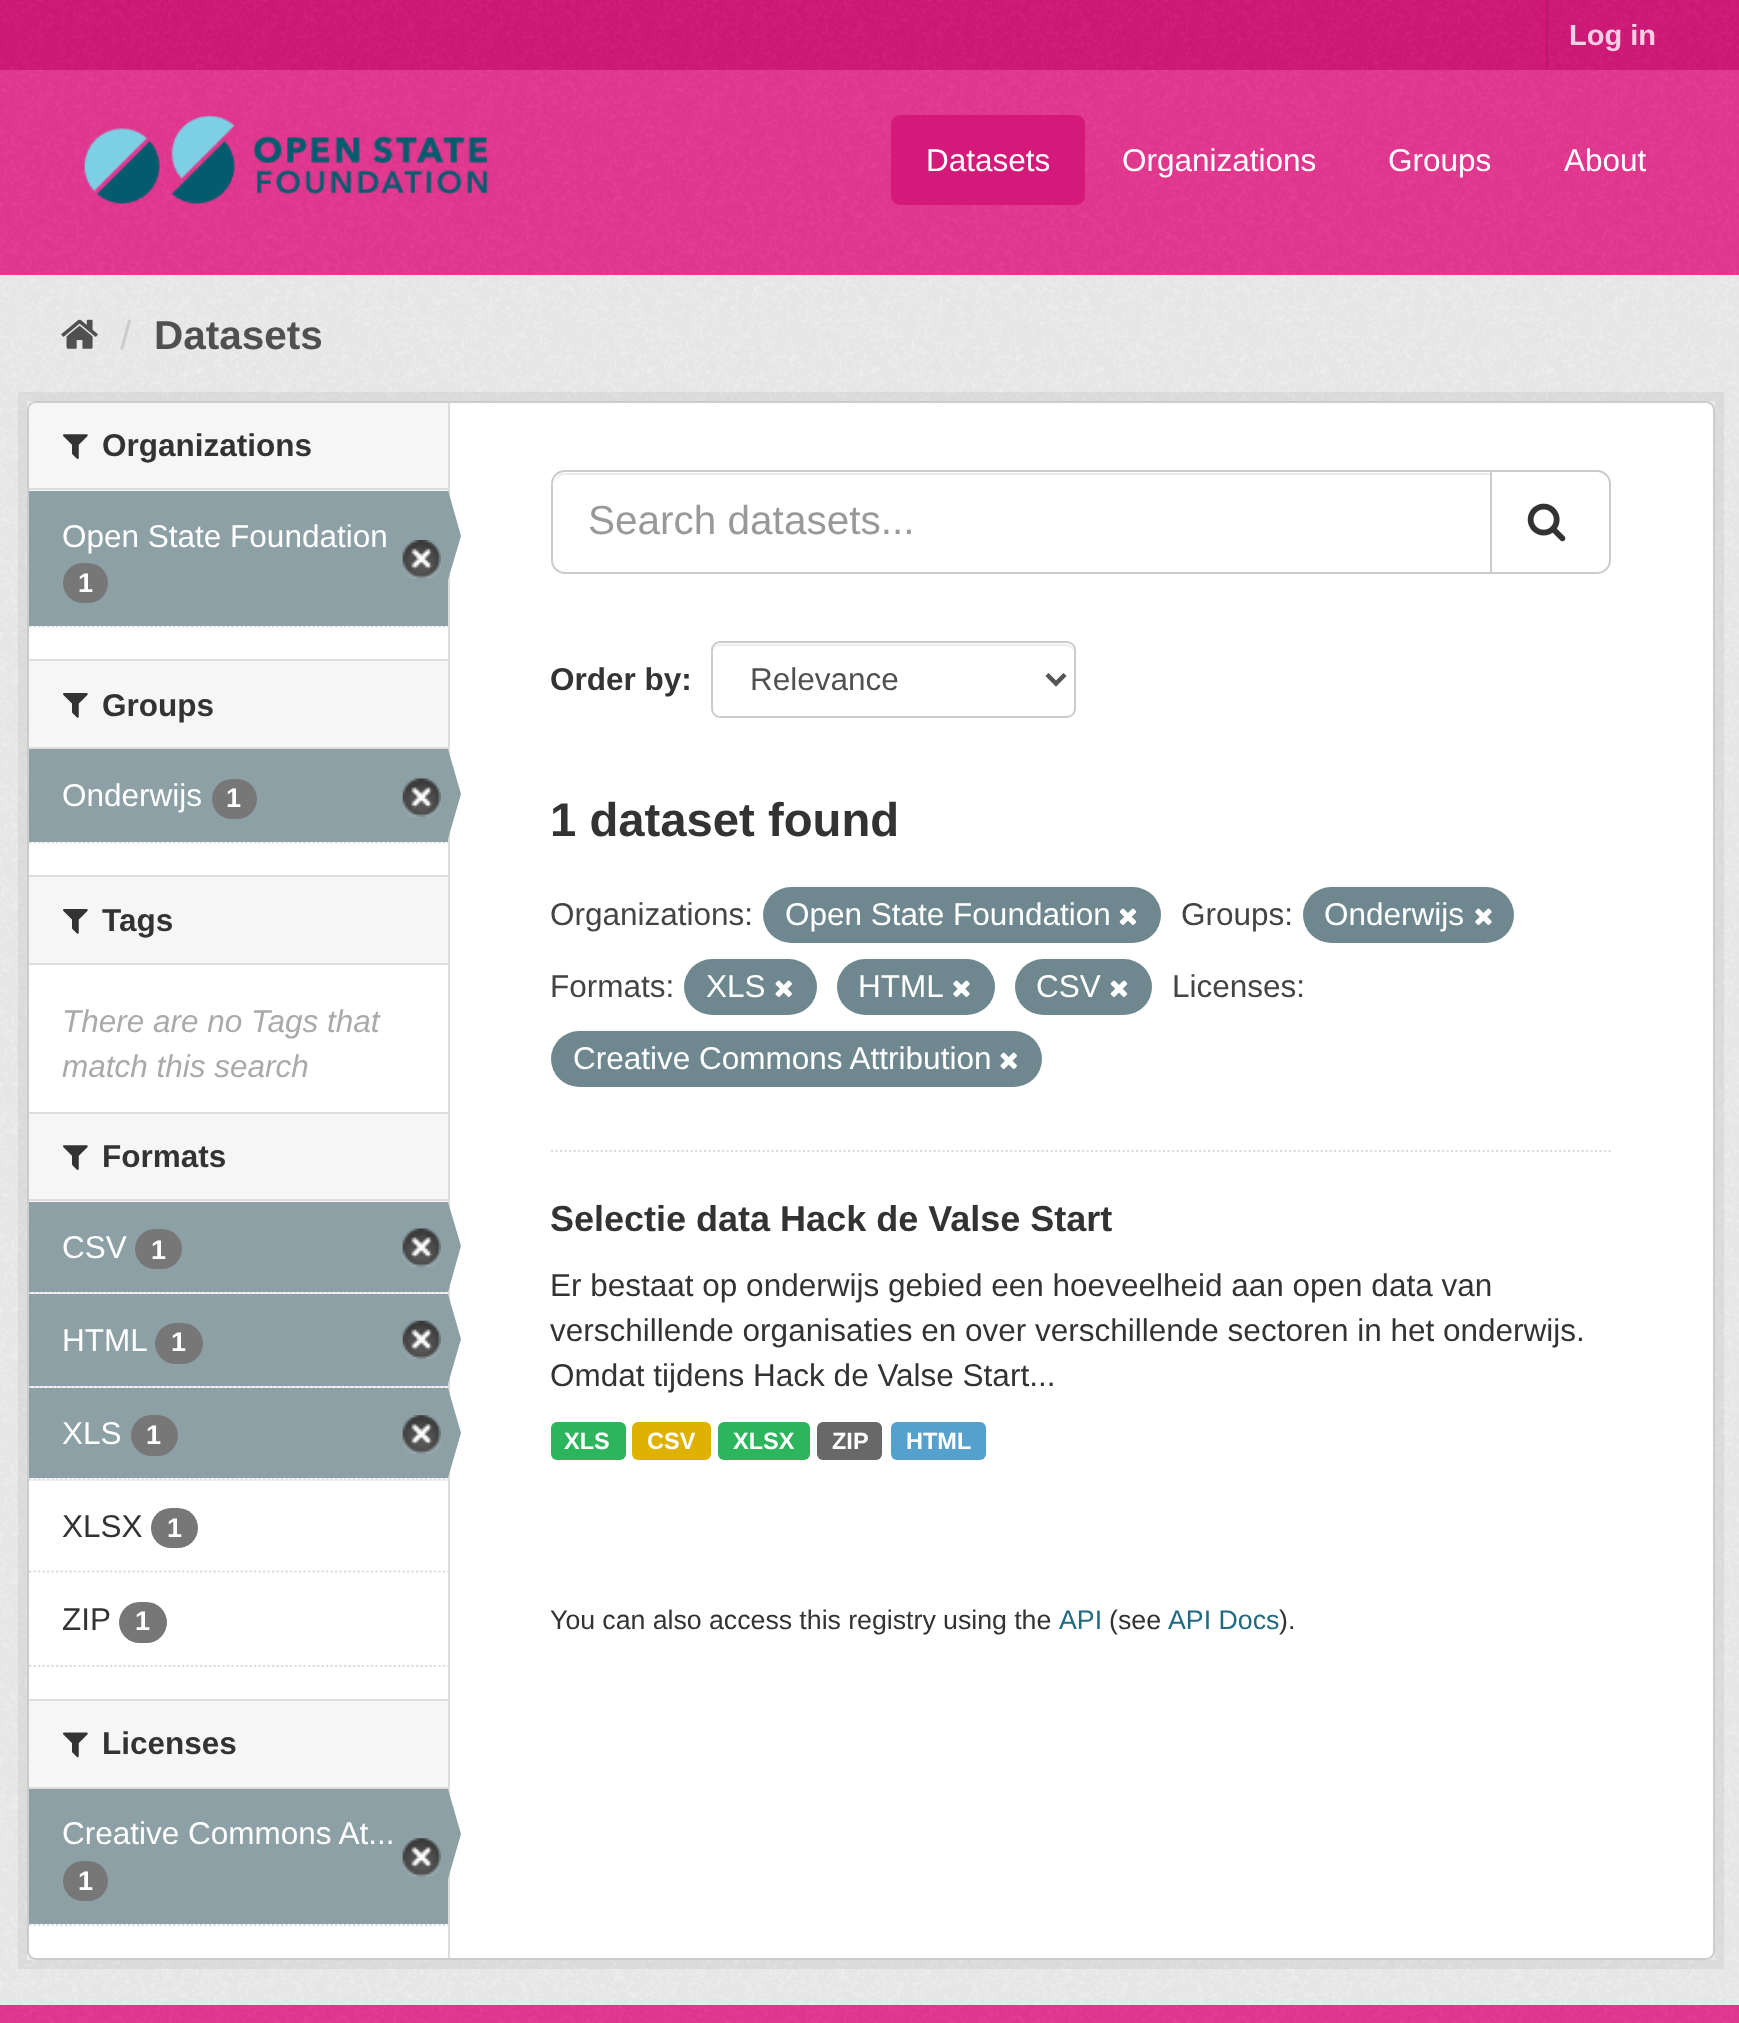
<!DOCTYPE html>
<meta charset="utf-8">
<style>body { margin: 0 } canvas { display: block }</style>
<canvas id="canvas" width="1739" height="2023"></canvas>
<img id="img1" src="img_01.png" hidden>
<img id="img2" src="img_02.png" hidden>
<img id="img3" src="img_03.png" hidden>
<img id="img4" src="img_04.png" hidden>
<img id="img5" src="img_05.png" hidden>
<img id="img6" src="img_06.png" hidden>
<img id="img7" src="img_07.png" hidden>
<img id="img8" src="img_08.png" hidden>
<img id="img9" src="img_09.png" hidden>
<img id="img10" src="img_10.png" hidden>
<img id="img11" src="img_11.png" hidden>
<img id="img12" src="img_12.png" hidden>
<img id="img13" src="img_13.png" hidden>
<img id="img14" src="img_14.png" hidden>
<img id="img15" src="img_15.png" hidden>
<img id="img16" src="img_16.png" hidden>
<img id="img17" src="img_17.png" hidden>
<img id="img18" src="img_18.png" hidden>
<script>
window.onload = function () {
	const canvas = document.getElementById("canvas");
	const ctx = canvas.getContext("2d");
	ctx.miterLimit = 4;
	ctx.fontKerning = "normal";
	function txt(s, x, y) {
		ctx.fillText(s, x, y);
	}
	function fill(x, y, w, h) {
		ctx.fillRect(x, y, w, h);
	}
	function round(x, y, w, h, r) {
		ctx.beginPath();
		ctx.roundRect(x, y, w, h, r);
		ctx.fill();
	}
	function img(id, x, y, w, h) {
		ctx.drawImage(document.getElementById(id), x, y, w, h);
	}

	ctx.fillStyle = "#D31979";
	fill(0, 0, 1739, 2023);
	img("img1", 0, 0, 1739, 70);
	ctx.fillStyle = "#BC176C";
	fill(1546, 0, 2, 70);
	ctx.fillStyle = "#E73892";
	fill(0, 70, 1739, 205);
	img("img2", 0, 70, 1739, 204);
	img("img3", 83, 114, 406, 91);
	ctx.fillStyle = "#D31979";
	round(891, 115, 194, 90, 9);
	ctx.fillStyle = "#EEEEEE";
	fill(0, 275, 1739, 1730);
	img("img4", 0, 275, 1739, 1730);
	img("img5", 61, 319, 37, 30);
	ctx.strokeStyle = "rgba(0, 0, 0, 0.05)";
	ctx.lineWidth = 9;
	ctx.strokeRect(22.5, 396.5, 1697, 1568);
	ctx.fillStyle = "#FFFFFF";
	ctx.beginPath();
	ctx.roundRect(28, 402, 1686, 1557, 8);
	ctx.fill();
	ctx.strokeStyle = "#CCCCCC";
	ctx.lineWidth = 2;
	ctx.stroke();
	ctx.fillStyle = "#F6F6F6";
	ctx.beginPath();
	ctx.roundRect(29, 403, 419, 88, [7, 0, 0, 0]);
	ctx.fill();
	ctx.fillStyle = "#DDDDDD";
	fill(29, 488, 419, 2);
	img("img6", 63, 434, 25, 25);
	ctx.beginPath();
	ctx.moveTo(29, 626.5);
	ctx.lineTo(448, 626.5);
	ctx.strokeStyle = "#DDDDDD";
	ctx.lineWidth = 2.2;
	ctx.setLineDash([2.25, 2.25]);
	ctx.stroke();
	ctx.fillStyle = "#8CA0A6";
	fill(29, 491, 419, 135);
	img("img7", 402, 540, 39, 39);
	ctx.fillStyle = "#DDDDDD";
	fill(448, 403, 2, 1555);
	ctx.fillStyle = "#8CA0A6";
	ctx.beginPath();
	ctx.moveTo(448, 580);
	ctx.lineTo(448, 490);
	ctx.lineTo(461, 536);
	ctx.closePath();
	ctx.fill();
	ctx.fillStyle = "#777777";
	round(63, 563, 45, 40, 20);
	ctx.fillStyle = "#F6F6F6";
	fill(29, 661, 419, 86);
	ctx.fillStyle = "#DDDDDD";
	fill(29, 659, 419, 2);
	fill(29, 747, 419, 2);
	img("img8", 63, 693, 25, 25);
	ctx.beginPath();
	ctx.moveTo(29, 842.5);
	ctx.lineTo(448, 842.5);
	ctx.stroke();
	ctx.fillStyle = "#8CA0A6";
	fill(29, 749, 419, 93);
	ctx.fillStyle = "#777777";
	round(212, 779, 45, 40, 20);
	img("img9", 402, 778, 39, 39);
	ctx.fillStyle = "#8CA0A6";
	ctx.beginPath();
	ctx.moveTo(448, 839);
	ctx.lineTo(448, 749);
	ctx.lineTo(461, 794);
	ctx.closePath();
	ctx.fill();
	ctx.fillStyle = "#F6F6F6";
	fill(29, 877, 419, 86);
	ctx.fillStyle = "#DDDDDD";
	fill(29, 875, 419, 2);
	fill(29, 963, 419, 2);
	img("img8", 63, 909, 25, 25);
	ctx.fillStyle = "#F6F6F6";
	fill(29, 1114, 419, 88);
	ctx.fillStyle = "#DDDDDD";
	fill(29, 1112, 419, 2);
	fill(29, 1199, 419, 2);
	img("img6", 63, 1145, 25, 25);
	ctx.fillStyle = "#F6F6F6";
	fill(29, 1292, 419, 2);
	ctx.beginPath();
	ctx.moveTo(29, 1292.5);
	ctx.lineTo(448, 1292.5);
	ctx.stroke();
	ctx.fillStyle = "#8CA0A6";
	fill(29, 1202, 419, 90);
	ctx.fillStyle = "#777777";
	round(135, 1229, 47, 40, 20);
	img("img10", 402, 1228, 39, 39);
	ctx.fillStyle = "#8CA0A6";
	ctx.beginPath();
	ctx.moveTo(448, 1292);
	ctx.lineTo(448, 1202);
	ctx.lineTo(461, 1246);
	ctx.closePath();
	ctx.fill();
	ctx.fillStyle = "#F6F6F6";
	fill(31, 1386, 417, 2);
	ctx.beginPath();
	ctx.moveTo(29, 1387);
	ctx.lineTo(448, 1387);
	ctx.stroke();
	ctx.fillStyle = "#8CA0A6";
	fill(29, 1294, 419, 92);
	ctx.fillStyle = "#777777";
	round(155, 1323, 48, 41, 20.5);
	img("img11", 402, 1320, 39, 39);
	ctx.fillStyle = "#8CA0A6";
	ctx.beginPath();
	ctx.moveTo(448, 1384);
	ctx.lineTo(448, 1294);
	ctx.lineTo(461, 1339);
	ctx.closePath();
	ctx.fill();
	ctx.fillStyle = "#F6F6F6";
	fill(29, 1478, 419, 3);
	ctx.beginPath();
	ctx.moveTo(29, 1479.5);
	ctx.lineTo(448, 1479.5);
	ctx.stroke();
	ctx.fillStyle = "#8CA0A6";
	fill(29, 1388, 419, 90);
	ctx.fillStyle = "#777777";
	round(131, 1415, 47, 41, 20.5);
	img("img12", 402, 1415, 39, 39);
	ctx.fillStyle = "#8CA0A6";
	ctx.beginPath();
	ctx.moveTo(448, 1478);
	ctx.lineTo(448, 1388);
	ctx.lineTo(461, 1433);
	ctx.closePath();
	ctx.fill();
	ctx.beginPath();
	ctx.moveTo(29, 1571.5);
	ctx.lineTo(448, 1571.5);
	ctx.stroke();
	ctx.fillStyle = "#777777";
	round(151, 1508, 47, 40, 20);
	round(119, 1602, 48, 41, 20.5);
	ctx.beginPath();
	ctx.moveTo(29, 1666);
	ctx.lineTo(448, 1666);
	ctx.stroke();
	ctx.fillStyle = "#F6F6F6";
	fill(29, 1701, 419, 86);
	ctx.fillStyle = "#DDDDDD";
	fill(29, 1699, 419, 2);
	fill(29, 1787, 419, 2);
	img("img13", 63, 1732, 25, 26);
	ctx.beginPath();
	ctx.moveTo(29, 1925);
	ctx.lineTo(448, 1925);
	ctx.stroke();
	ctx.fillStyle = "#8CA0A6";
	fill(29, 1789, 419, 135);
	ctx.beginPath();
	ctx.moveTo(448, 1879);
	ctx.lineTo(448, 1789);
	ctx.lineTo(461, 1834);
	ctx.closePath();
	ctx.fill();
	img("img12", 402, 1838, 39, 39);
	ctx.fillStyle = "#777777";
	round(63, 1861, 45, 40, 20);
	ctx.beginPath();
	ctx.moveTo(551, 1151);
	ctx.lineTo(1611, 1151);
	ctx.stroke();
	ctx.fillStyle = "#ECECEC";
	ctx.beginPath();
	ctx.moveTo(565, 475);
	ctx.lineTo(1490, 475);
	ctx.lineTo(1490, 473);
	ctx.lineTo(565, 473);
	ctx.bezierCurveTo(558, 473, 554, 479, 554, 486);
	ctx.bezierCurveTo(554, 480, 559, 475, 565, 475);
	ctx.closePath();
	ctx.fill();
	ctx.beginPath();
	ctx.roundRect(552, 471, 939, 102, [13, 0, 0, 13]);
	ctx.strokeStyle = "#CCCCCC";
	ctx.lineWidth = 2;
	ctx.setLineDash([]);
	ctx.stroke();
	ctx.fillStyle = "#FFFFFF";
	ctx.beginPath();
	ctx.roundRect(1491, 471, 119, 102, [0, 13, 13, 0]);
	ctx.fill();
	ctx.stroke();
	img("img14", 1527, 503, 39, 39);
	ctx.fillStyle = "#ECECEC";
	ctx.beginPath();
	ctx.moveTo(720, 646);
	ctx.lineTo(1066, 646);
	ctx.bezierCurveTo(1070, 646, 1073, 649, 1073, 652);
	ctx.lineTo(1073, 651);
	ctx.bezierCurveTo(1073, 647, 1070, 644, 1066, 644);
	ctx.lineTo(720, 644);
	ctx.bezierCurveTo(716, 644, 713, 647, 713, 651);
	ctx.lineTo(713, 652);
	ctx.bezierCurveTo(713, 649, 716, 646, 720, 646);
	ctx.closePath();
	ctx.fill();
	ctx.beginPath();
	ctx.roundRect(712, 642, 363, 75, 8);
	ctx.stroke();
	ctx.beginPath();
	ctx.moveTo(1047, 674.5);
	ctx.lineTo(1056, 683.5);
	ctx.lineTo(1065, 674.5);
	ctx.strokeStyle = "#555555";
	ctx.lineWidth = 4.5;
	ctx.stroke();
	ctx.fillStyle = "#6F8890";
	round(763, 887, 398, 56, 28);
	img("img15", 1119, 908, 18, 17);
	round(1303, 887, 211, 56, 28);
	img("img16", 1475, 908, 17, 17);
	round(684, 959, 133, 56, 28);
	img("img17", 775, 980, 17, 17);
	round(837, 959, 158, 56, 28);
	img("img16", 953, 980, 17, 17);
	round(1015, 959, 137, 56, 28);
	img("img15", 1110, 980, 18, 17);
	round(551, 1031, 491, 56, 28);
	img("img17", 1000, 1052, 17, 17);
	ctx.fillStyle = "#2DB55D";
	round(551, 1422, 75, 38, 6);
	ctx.fillStyle = "#DFB100";
	round(632, 1422, 79, 38, 6);
	ctx.fillStyle = "#2DB55D";
	round(718, 1422, 92, 38, 6);
	ctx.fillStyle = "#686868";
	round(817, 1422, 65, 38, 6);
	ctx.fillStyle = "#55A1CE";
	round(891, 1422, 95, 38, 6);
	ctx.fillStyle = "#E73892";
	fill(0, 2005, 1739, 18);
	img("img18", 0, 2005, 1739, 18);
	ctx.font = "bold 29px Liberation Sans";
	ctx.fillStyle = "#F9CDE4";
	txt("Log in", 1569, 45);
	ctx.font = "31.5px Liberation Sans";
	ctx.fillStyle = "#FFFFFF";
	txt("Datasets", 926, 171);
	txt("Organizations", 1122, 171);
	txt("Groups", 1388, 171);
	txt("About", 1564, 171);
	ctx.font = "40.5px Liberation Sans";
	ctx.fillStyle = "#CCCCCC";
	txt("/", 120, 349);
	ctx.font = "bold 40.5px Liberation Sans";
	ctx.fillStyle = "#505050";
	txt("Datasets", 154, 349);
	ctx.font = "bold 31.5px Liberation Sans";
	ctx.fillStyle = "#333333";
	txt("Organizations", 102, 456);
	ctx.font = "31.5px Liberation Sans";
	ctx.fillStyle = "#FFFFFF";
	txt("Open State Foundation", 62, 547);
	ctx.font = "bold 27px Liberation Sans";
	txt("1", 78, 592);
	ctx.font = "bold 31.5px Liberation Sans";
	ctx.fillStyle = "#333333";
	txt("Groups", 102, 716);
	ctx.font = "31.5px Liberation Sans";
	ctx.fillStyle = "#FFFFFF";
	txt("Onderwijs", 62, 806);
	ctx.font = "bold 27px Liberation Sans";
	txt("1", 226, 807);
	ctx.font = "bold 31.5px Liberation Sans";
	ctx.fillStyle = "#333333";
	txt("Tags", 102, 931);
	ctx.font = "italic 31.5px Liberation Sans";
	ctx.fillStyle = "#AAAAAA";
	txt("There are no Tags that", 62, 1032);
	txt("match this search", 62, 1077);
	ctx.font = "bold 31.5px Liberation Sans";
	ctx.fillStyle = "#333333";
	txt("Formats", 102, 1167);
	ctx.font = "31.5px Liberation Sans";
	ctx.fillStyle = "#FFFFFF";
	txt("CSV", 62, 1258);
	ctx.font = "bold 27px Liberation Sans";
	txt("1", 151, 1259);
	ctx.font = "31.5px Liberation Sans";
	txt("HTML", 62, 1351);
	ctx.font = "bold 27px Liberation Sans";
	txt("1", 171, 1351);
	ctx.font = "31.5px Liberation Sans";
	txt("XLS", 62, 1444);
	ctx.font = "bold 27px Liberation Sans";
	txt("1", 146, 1444);
	ctx.font = "31.5px Liberation Sans";
	ctx.fillStyle = "#333333";
	txt("XLSX", 62, 1537);
	ctx.font = "bold 27px Liberation Sans";
	ctx.fillStyle = "#FFFFFF";
	txt("1", 167, 1537);
	ctx.font = "31.5px Liberation Sans";
	ctx.fillStyle = "#333333";
	txt("ZIP", 62, 1630);
	ctx.font = "bold 27px Liberation Sans";
	ctx.fillStyle = "#FFFFFF";
	txt("1", 135, 1630);
	ctx.font = "bold 31.5px Liberation Sans";
	ctx.fillStyle = "#333333";
	txt("Licenses", 102, 1754);
	ctx.font = "31.5px Liberation Sans";
	ctx.fillStyle = "#FFFFFF";
	txt("Creative Commons At...", 62, 1844);
	ctx.font = "bold 27px Liberation Sans";
	txt("1", 78, 1890);
	ctx.font = "40.5px Liberation Sans";
	ctx.fillStyle = "#999999";
	txt("Search datasets...", 588, 534);
	ctx.font = "bold 31.5px Liberation Sans";
	ctx.fillStyle = "#333333";
	txt("Order by:", 550, 690);
	ctx.font = "31.5px Liberation Sans";
	ctx.fillStyle = "#505050";
	txt("Relevance", 750, 690);
	ctx.font = "bold 47.25px Liberation Sans";
	ctx.fillStyle = "#333333";
	txt("1 dataset found", 550, 836);
	ctx.font = "31.5px Liberation Sans";
	ctx.fillStyle = "#444444";
	txt("Organizations:", 550, 925);
	ctx.fillStyle = "#FFFFFF";
	txt("Open State Foundation", 785, 925);
	ctx.fillStyle = "#444444";
	txt("Groups:", 1181, 925);
	ctx.fillStyle = "#FFFFFF";
	txt("Onderwijs", 1324, 925);
	ctx.fillStyle = "#444444";
	txt("Formats:", 550, 997);
	ctx.fillStyle = "#FFFFFF";
	txt("XLS", 706, 997);
	txt("HTML", 858, 997);
	txt("CSV", 1036, 997);
	ctx.fillStyle = "#444444";
	txt("Licenses:", 1172, 997);
	ctx.fillStyle = "#FFFFFF";
	txt("Creative Commons Attribution", 573, 1069);
	ctx.font = "bold 36px Liberation Sans";
	ctx.fillStyle = "#333333";
	txt("Selectie data Hack de Valse Start", 550, 1231);
	ctx.font = "31.5px Liberation Sans";
	txt("Er bestaat op onderwijs gebied een hoeveelheid aan open data van", 550, 1296);
	txt("verschillende organisaties en over verschillende sectoren in het onderwijs.", 550, 1341);
	txt("Omdat tijdens Hack de Valse Start...", 550, 1386);
	ctx.font = "bold 23.5px Liberation Sans";
	ctx.fillStyle = "#FFFFFF";
	txt("XLS", 564, 1449);
	txt("CSV", 647, 1449);
	txt("XLSX", 733, 1449);
	txt("ZIP", 832, 1449);
	txt("HTML", 906, 1449);
	ctx.wordSpacing = "-0.25px";
	ctx.font = "26.75px Liberation Sans";
	ctx.fillStyle = "#333333";
	txt("You can also access this registry using the", 550, 1629);
	ctx.wordSpacing = "0px";
	ctx.fillStyle = "#206B82";
	txt("API", 1059, 1629);
	ctx.fillStyle = "#333333";
	txt("(see", 1109, 1629);
	ctx.fillStyle = "#206B82";
	txt("API Docs", 1168, 1629);
	ctx.fillStyle = "#333333";
	txt(").", 1279, 1629);
};
</script>
